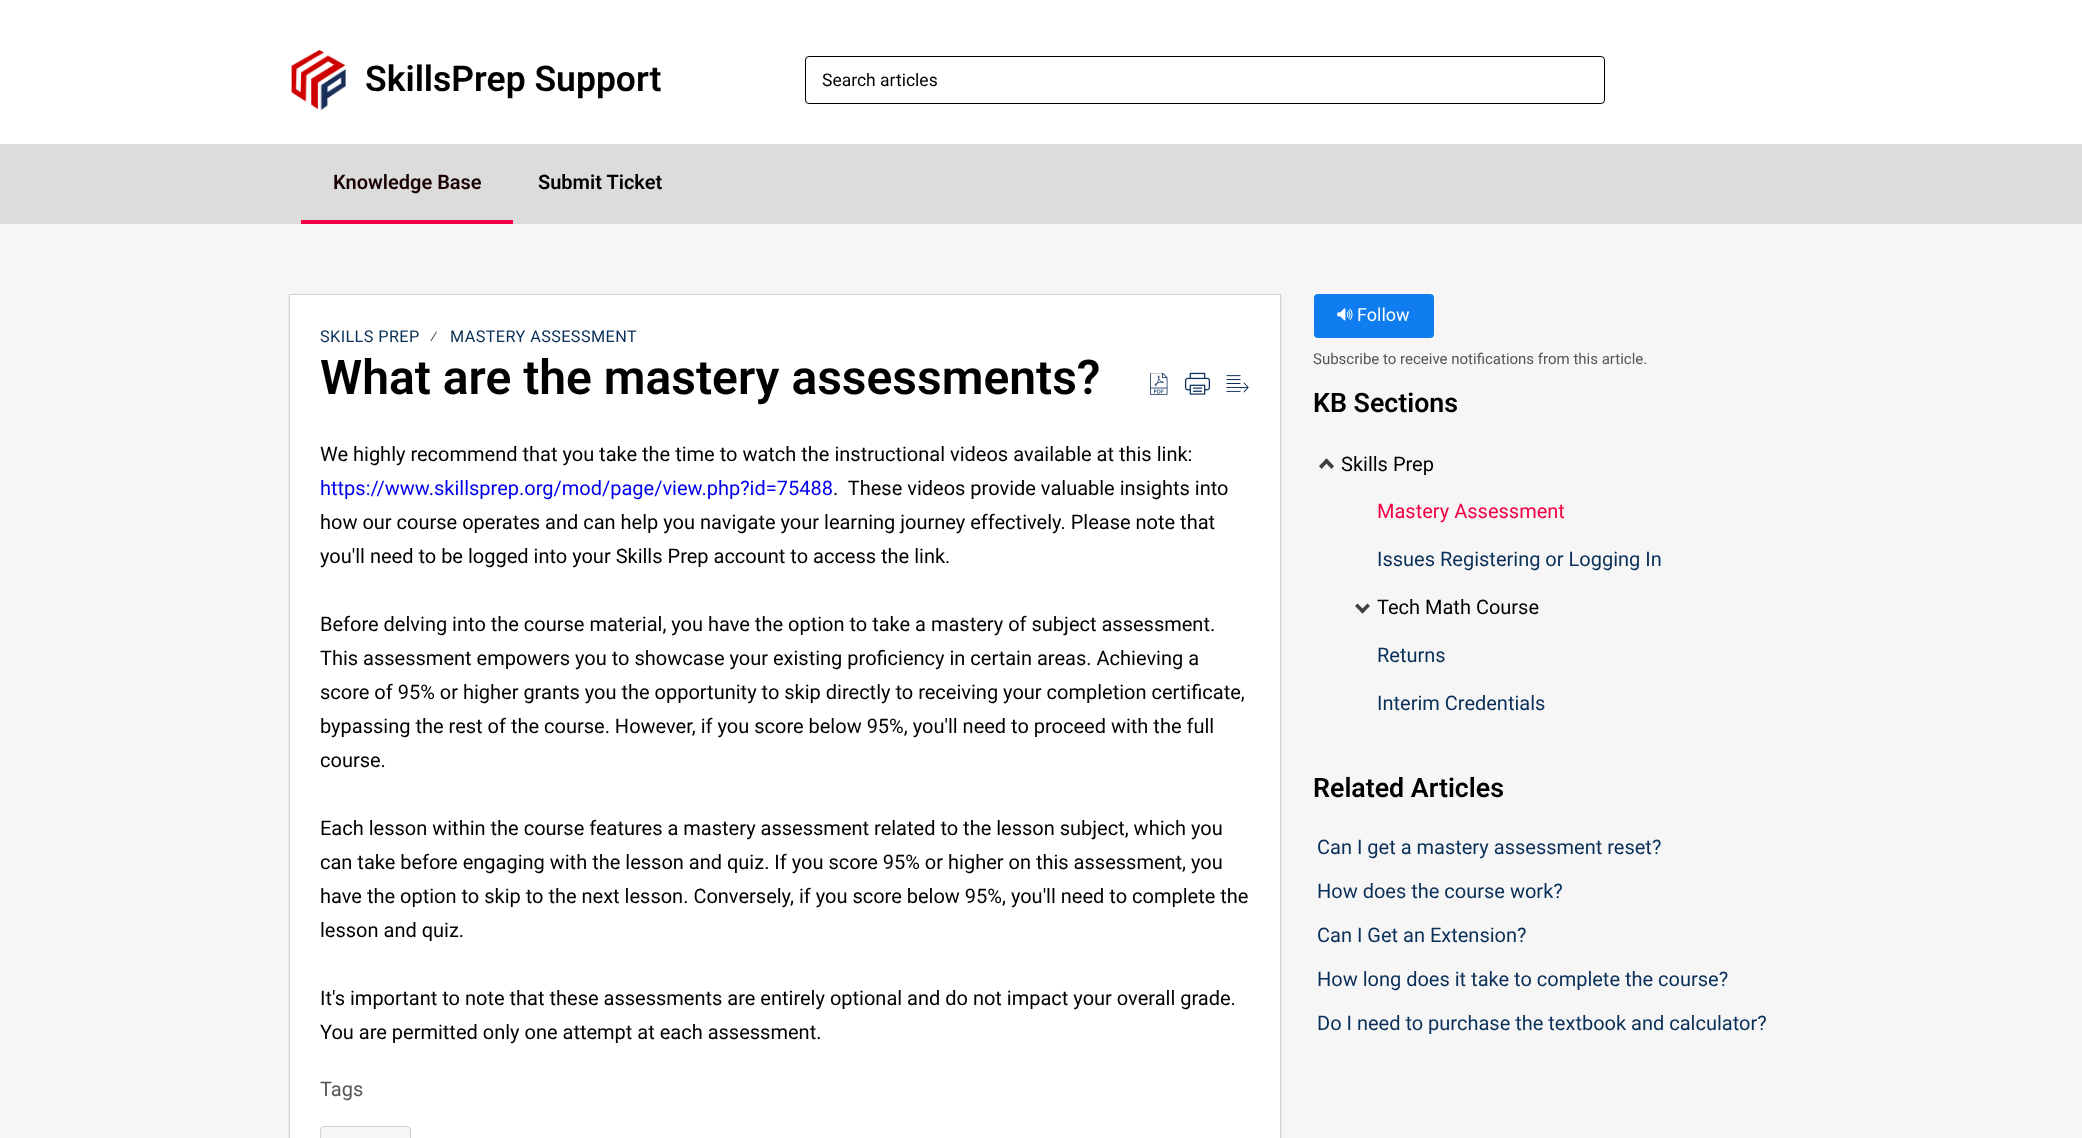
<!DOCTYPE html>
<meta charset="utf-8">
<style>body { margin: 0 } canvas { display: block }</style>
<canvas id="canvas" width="2082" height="1138"></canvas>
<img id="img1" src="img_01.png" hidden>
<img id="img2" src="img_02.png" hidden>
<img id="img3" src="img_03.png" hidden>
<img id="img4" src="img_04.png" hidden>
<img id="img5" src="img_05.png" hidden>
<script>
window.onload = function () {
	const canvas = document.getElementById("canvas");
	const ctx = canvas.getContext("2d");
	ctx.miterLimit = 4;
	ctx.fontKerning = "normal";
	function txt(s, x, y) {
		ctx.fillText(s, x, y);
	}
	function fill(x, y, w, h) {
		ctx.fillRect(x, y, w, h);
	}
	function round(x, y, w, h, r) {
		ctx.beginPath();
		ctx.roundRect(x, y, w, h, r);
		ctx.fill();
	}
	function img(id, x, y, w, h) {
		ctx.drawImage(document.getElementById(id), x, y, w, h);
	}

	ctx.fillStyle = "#F6F6F6";
	fill(0, 0, 2082, 1138);
	ctx.fillStyle = "#FFFFFF";
	fill(0, 0, 2082, 144);
	img("img1", 291, 50, 55, 60);
	ctx.beginPath();
	ctx.roundRect(805.5, 56.5, 799, 47, 3.5);
	ctx.strokeStyle = "#000000";
	ctx.stroke();
	ctx.fillStyle = "#DCDCDC";
	fill(0, 144, 2082, 80);
	ctx.fillStyle = "#F20043";
	fill(301, 220, 212, 4);
	ctx.fillStyle = "rgba(32, 35, 32, 0.15)";
	ctx.filter = "blur(1px)";
	ctx.beginPath();
	ctx.rect(289, 296, 992, 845);
	ctx.fill();
	ctx.filter = "none";
	ctx.fillStyle = "#FFFFFF";
	fill(290, 295, 990, 843);
	ctx.fillStyle = "#D2D3D2";
	fill(289, 294, 992, 1);
	fill(1280, 294, 1, 844);
	fill(289, 294, 1, 844);
	img("img2", 1150, 373, 18, 22);
	img("img3", 1185, 372, 25, 23);
	img("img4", 1226, 375, 23, 18);
	ctx.fillStyle = "#F6F6F6";
	ctx.beginPath();
	ctx.moveTo(324, 1126);
	ctx.lineTo(407, 1126);
	ctx.bezierCurveTo(409, 1126, 411, 1128, 411, 1130);
	ctx.lineTo(411, 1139);
	ctx.lineTo(320, 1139);
	ctx.lineTo(320, 1130);
	ctx.bezierCurveTo(320, 1128, 322, 1126, 324, 1126);
	ctx.closePath();
	ctx.fill();
	ctx.beginPath();
	ctx.roundRect(320.5, 1126.5, 90, 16, 3.5);
	ctx.strokeStyle = "#D2D3D2";
	ctx.stroke();
	ctx.fillStyle = "#0F7DF0";
	round(1314, 294, 120, 44, 4);
	img("img5", 1337, 308, 16, 13);
	ctx.fillStyle = "#3E413E";
	ctx.beginPath();
	ctx.moveTo(1329, 461);
	ctx.lineTo(1321.5, 469);
	ctx.lineTo(1319, 466);
	ctx.lineTo(1326.5, 458.5);
	ctx.closePath();
	ctx.fill();
	ctx.beginPath();
	ctx.moveTo(1334, 466);
	ctx.lineTo(1331.5, 469);
	ctx.lineTo(1324, 461);
	ctx.lineTo(1326.5, 458.5);
	ctx.closePath();
	ctx.fill();
	ctx.beginPath();
	ctx.moveTo(1360, 611);
	ctx.lineTo(1367.5, 603.5);
	ctx.lineTo(1370, 606);
	ctx.lineTo(1362.5, 613.5);
	ctx.closePath();
	ctx.fill();
	ctx.beginPath();
	ctx.moveTo(1355, 606);
	ctx.lineTo(1357.5, 603.5);
	ctx.lineTo(1365, 611);
	ctx.lineTo(1362.5, 613.5);
	ctx.closePath();
	ctx.fill();
	ctx.font = "600 35.5px Roboto";
	ctx.fillStyle = "#000000";
	txt("SkillsPrep Support", 365, 91);
	ctx.font = "17.5px Roboto";
	txt("Search articles", 822, 86);
	ctx.font = "600 20px Roboto";
	ctx.fillStyle = "#1B0202";
	txt("Knowledge Base", 333, 189);
	ctx.fillStyle = "#000000";
	txt("Submit Ticket", 538, 189);
	ctx.letterSpacing = "0.4px";
	ctx.font = "16.25px Roboto";
	ctx.fillStyle = "#092F58";
	txt("SKILLS PREP", 320, 342);
	ctx.fillStyle = "#555555";
	txt("⁄", 430, 342);
	ctx.fillStyle = "#092F58";
	txt("MASTERY ASSESSMENT", 450, 342);
	ctx.letterSpacing = "0px";
	ctx.font = "600 48px Roboto";
	ctx.fillStyle = "#000000";
	txt("What are the mastery assessments?", 320, 394);
	ctx.font = "20px Roboto";
	txt("We highly recommend that you take the time to watch the instructional videos available at this link:", 320, 461);
	ctx.fillStyle = "#0000EE";
	txt("https://www.skillsprep.org/mod/page/view.php?id=75488", 320, 495);
	ctx.fillStyle = "#000000";
	txt(".  These videos provide valuable insights into", 833, 495);
	txt("how our course operates and can help you navigate your learning journey effectively. Please note that", 320, 529);
	txt("you'll need to be logged into your Skills Prep account to access the link.", 320, 563);
	txt("Before delving into the course material, you have the option to take a mastery of subject assessment.", 320, 631);
	txt("This assessment empowers you to showcase your existing proficiency in certain areas. Achieving a", 320, 665);
	txt("score of 95% or higher grants you the opportunity to skip directly to receiving your completion certificate,", 320, 699);
	txt("bypassing the rest of the course. However, if you score below 95%, you'll need to proceed with the full", 320, 733);
	txt("course.", 320, 767);
	txt("Each lesson within the course features a mastery assessment related to the lesson subject, which you", 320, 835);
	txt("can take before engaging with the lesson and quiz. If you score 95% or higher on this assessment, you", 320, 869);
	txt("have the option to skip to the next lesson. Conversely, if you score below 95%, you'll need to complete the", 320, 903);
	txt("lesson and quiz.", 320, 937);
	txt("It's important to note that these assessments are entirely optional and do not impact your overall grade.", 320, 1005);
	txt("You are permitted only one attempt at each assessment.", 320, 1039);
	ctx.fillStyle = "#555555";
	txt("Tags", 320, 1096);
	ctx.font = "18px Roboto";
	ctx.fillStyle = "#FFFFFF";
	txt("Follow", 1357, 321);
	ctx.font = "15px Roboto";
	ctx.fillStyle = "#555555";
	txt("Subscribe to receive notifications from this article.", 1313, 364);
	ctx.font = "600 26.75px Roboto";
	ctx.fillStyle = "#000000";
	txt("KB Sections", 1313, 412);
	ctx.font = "20px Roboto";
	txt("Skills Prep", 1341, 471);
	ctx.fillStyle = "#F20043";
	txt("Mastery Assessment", 1377, 518);
	ctx.fillStyle = "#092F58";
	txt("Issues Registering or Logging In", 1377, 566);
	ctx.fillStyle = "#000000";
	txt("Tech Math Course", 1377, 614);
	ctx.fillStyle = "#092F58";
	txt("Returns", 1377, 662);
	txt("Interim Credentials", 1377, 710);
	ctx.font = "600 26.75px Roboto";
	ctx.fillStyle = "#000000";
	txt("Related Articles", 1313, 797);
	ctx.font = "20px Roboto";
	ctx.fillStyle = "#092F58";
	txt("Can I get a mastery assessment reset?", 1317, 854);
	txt("How does the course work?", 1317, 898);
	txt("Can I Get an Extension?", 1317, 942);
	txt("How long does it take to complete the course?", 1317, 986);
	txt("Do I need to purchase the textbook and calculator?", 1317, 1030);
};
</script>
